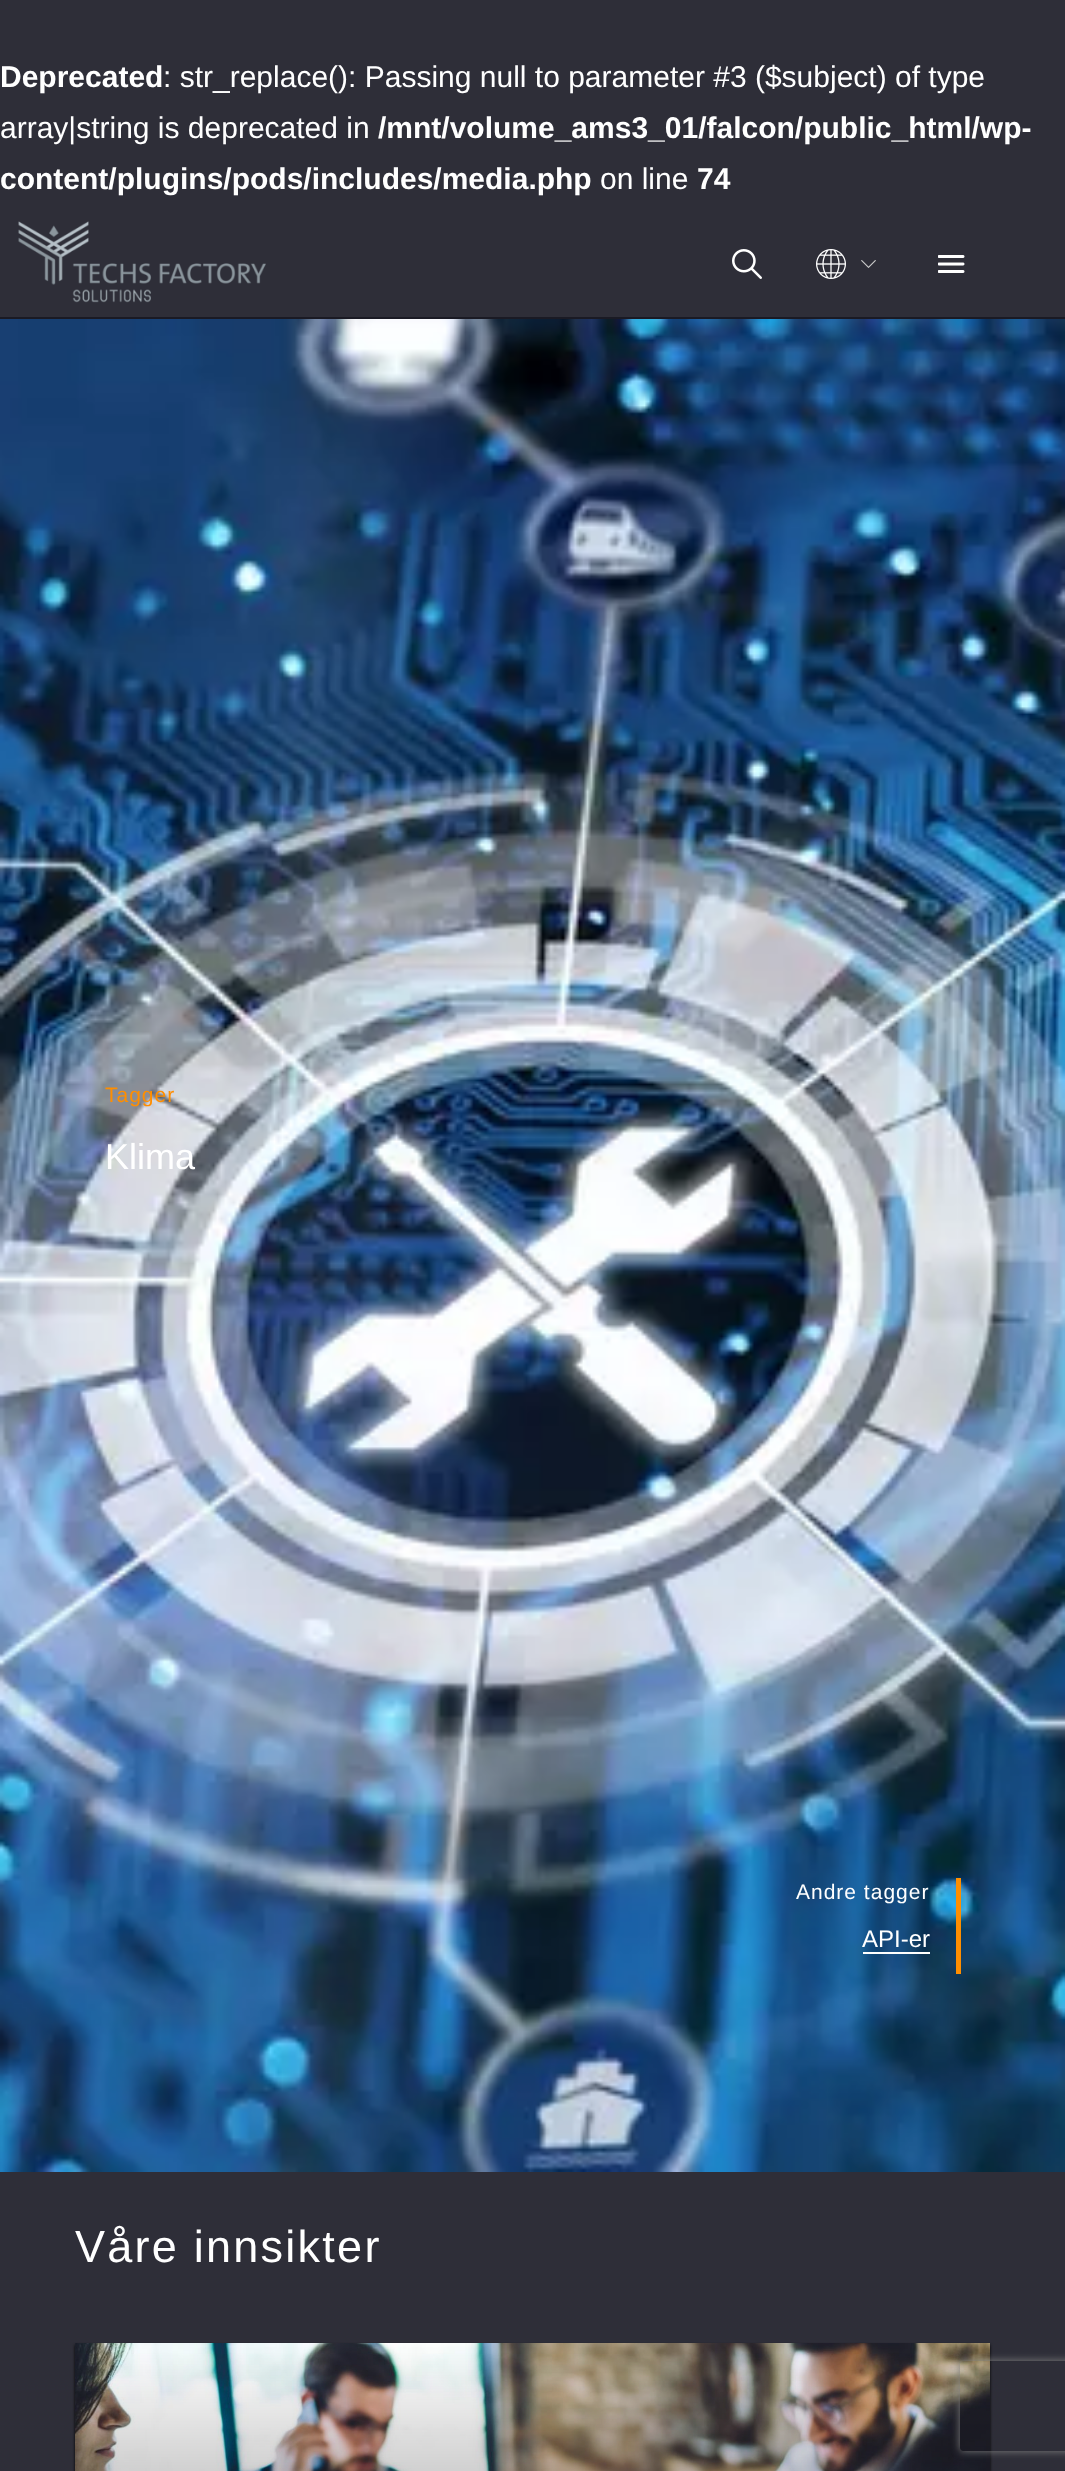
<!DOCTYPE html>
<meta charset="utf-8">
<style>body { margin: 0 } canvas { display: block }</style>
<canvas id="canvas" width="1065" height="2471"></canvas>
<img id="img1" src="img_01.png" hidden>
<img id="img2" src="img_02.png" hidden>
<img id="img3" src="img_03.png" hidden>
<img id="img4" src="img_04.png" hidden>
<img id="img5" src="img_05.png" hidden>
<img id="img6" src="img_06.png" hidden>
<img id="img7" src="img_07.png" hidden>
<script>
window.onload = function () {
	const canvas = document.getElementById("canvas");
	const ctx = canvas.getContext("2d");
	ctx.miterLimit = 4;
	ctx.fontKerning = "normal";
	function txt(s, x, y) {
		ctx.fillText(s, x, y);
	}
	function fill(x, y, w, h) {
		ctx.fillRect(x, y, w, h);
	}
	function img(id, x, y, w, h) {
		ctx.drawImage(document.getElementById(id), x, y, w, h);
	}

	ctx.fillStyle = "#2E2E38";
	fill(0, 0, 1065, 2471);
	img("img1", 18, 221, 248, 82);
	img("img2", 732, 249, 30, 30);
	img("img3", 861, 260, 15, 8);
	img("img4", 816, 249, 30, 30);
	img("img5", 938, 255, 27, 18);
	ctx.fillStyle = "#1A1A24";
	fill(0, 317, 1065, 2);
	img("img6", 0, 319, 1065, 1853);
	ctx.fillStyle = "#FF8E00";
	fill(956, 1878, 5, 96);
	ctx.fillStyle = "#FFFFFF";
	fill(863, 1952, 67, 2);
	ctx.fillStyle = "#000000";
	ctx.filter = "blur(1.5px)";
	ctx.beginPath();
	ctx.rect(75, 2345, 915, 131);
	ctx.fill();
	ctx.filter = "none";
	img("img7", 75, 2343, 915, 128);
	ctx.save();
	ctx.beginPath();
	ctx.moveTo(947, 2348);
	ctx.lineTo(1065, 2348);
	ctx.lineTo(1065, 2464);
	ctx.lineTo(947, 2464);
	ctx.closePath();
	ctx.moveTo(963, 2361);
	ctx.lineTo(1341, 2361);
	ctx.bezierCurveTo(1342.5, 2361, 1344, 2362.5, 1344, 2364);
	ctx.lineTo(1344, 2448);
	ctx.bezierCurveTo(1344, 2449.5, 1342.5, 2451, 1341, 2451);
	ctx.lineTo(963, 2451);
	ctx.bezierCurveTo(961.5, 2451, 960, 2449.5, 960, 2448);
	ctx.lineTo(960, 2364);
	ctx.bezierCurveTo(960, 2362.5, 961.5, 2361, 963, 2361);
	ctx.closePath();
	ctx.clip("evenodd");
	ctx.fillStyle = "#808080";
	ctx.filter = "blur(4px)";
	ctx.beginPath();
	ctx.roundRect(960, 2361, 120, 90, 3);
	ctx.fill();
	ctx.filter = "none";
	ctx.restore();
	ctx.font = "bold 30px Liberation Sans";
	ctx.fillStyle = "#FFFFFF";
	txt("Deprecated", 0, 87);
	ctx.font = "30px Liberation Sans";
	txt(": str_replace(): Passing null to parameter #3 ($subject) of type", 163, 87);
	txt("array|string is deprecated in", 0, 138);
	ctx.font = "bold 30px Liberation Sans";
	txt("/mnt/volume_ams3_01/falcon/public_html/wp-", 378, 138);
	txt("content/plugins/pods/includes/media.php", 0, 189);
	ctx.font = "30px Liberation Sans";
	txt("on line", 600, 189);
	ctx.font = "bold 30px Liberation Sans";
	txt("74", 697, 189);
	ctx.letterSpacing = "1px";
	ctx.font = "21px Liberation Sans";
	ctx.fillStyle = "#FF8E00";
	txt("Tagger", 105, 1102);
	ctx.letterSpacing = "0px";
	ctx.font = "36px Liberation Sans";
	ctx.fillStyle = "#FFFFFF";
	txt("Klima", 105, 1169);
	ctx.letterSpacing = "1px";
	ctx.font = "21px Liberation Sans";
	txt("Andre tagger", 796, 1899);
	ctx.letterSpacing = "0px";
	ctx.font = "24px Liberation Sans";
	txt("API-er", 862, 1947);
	ctx.letterSpacing = "2.25px";
	ctx.font = "45px Liberation Sans";
	txt("Våre innsikter", 75, 2262);
};
</script>
